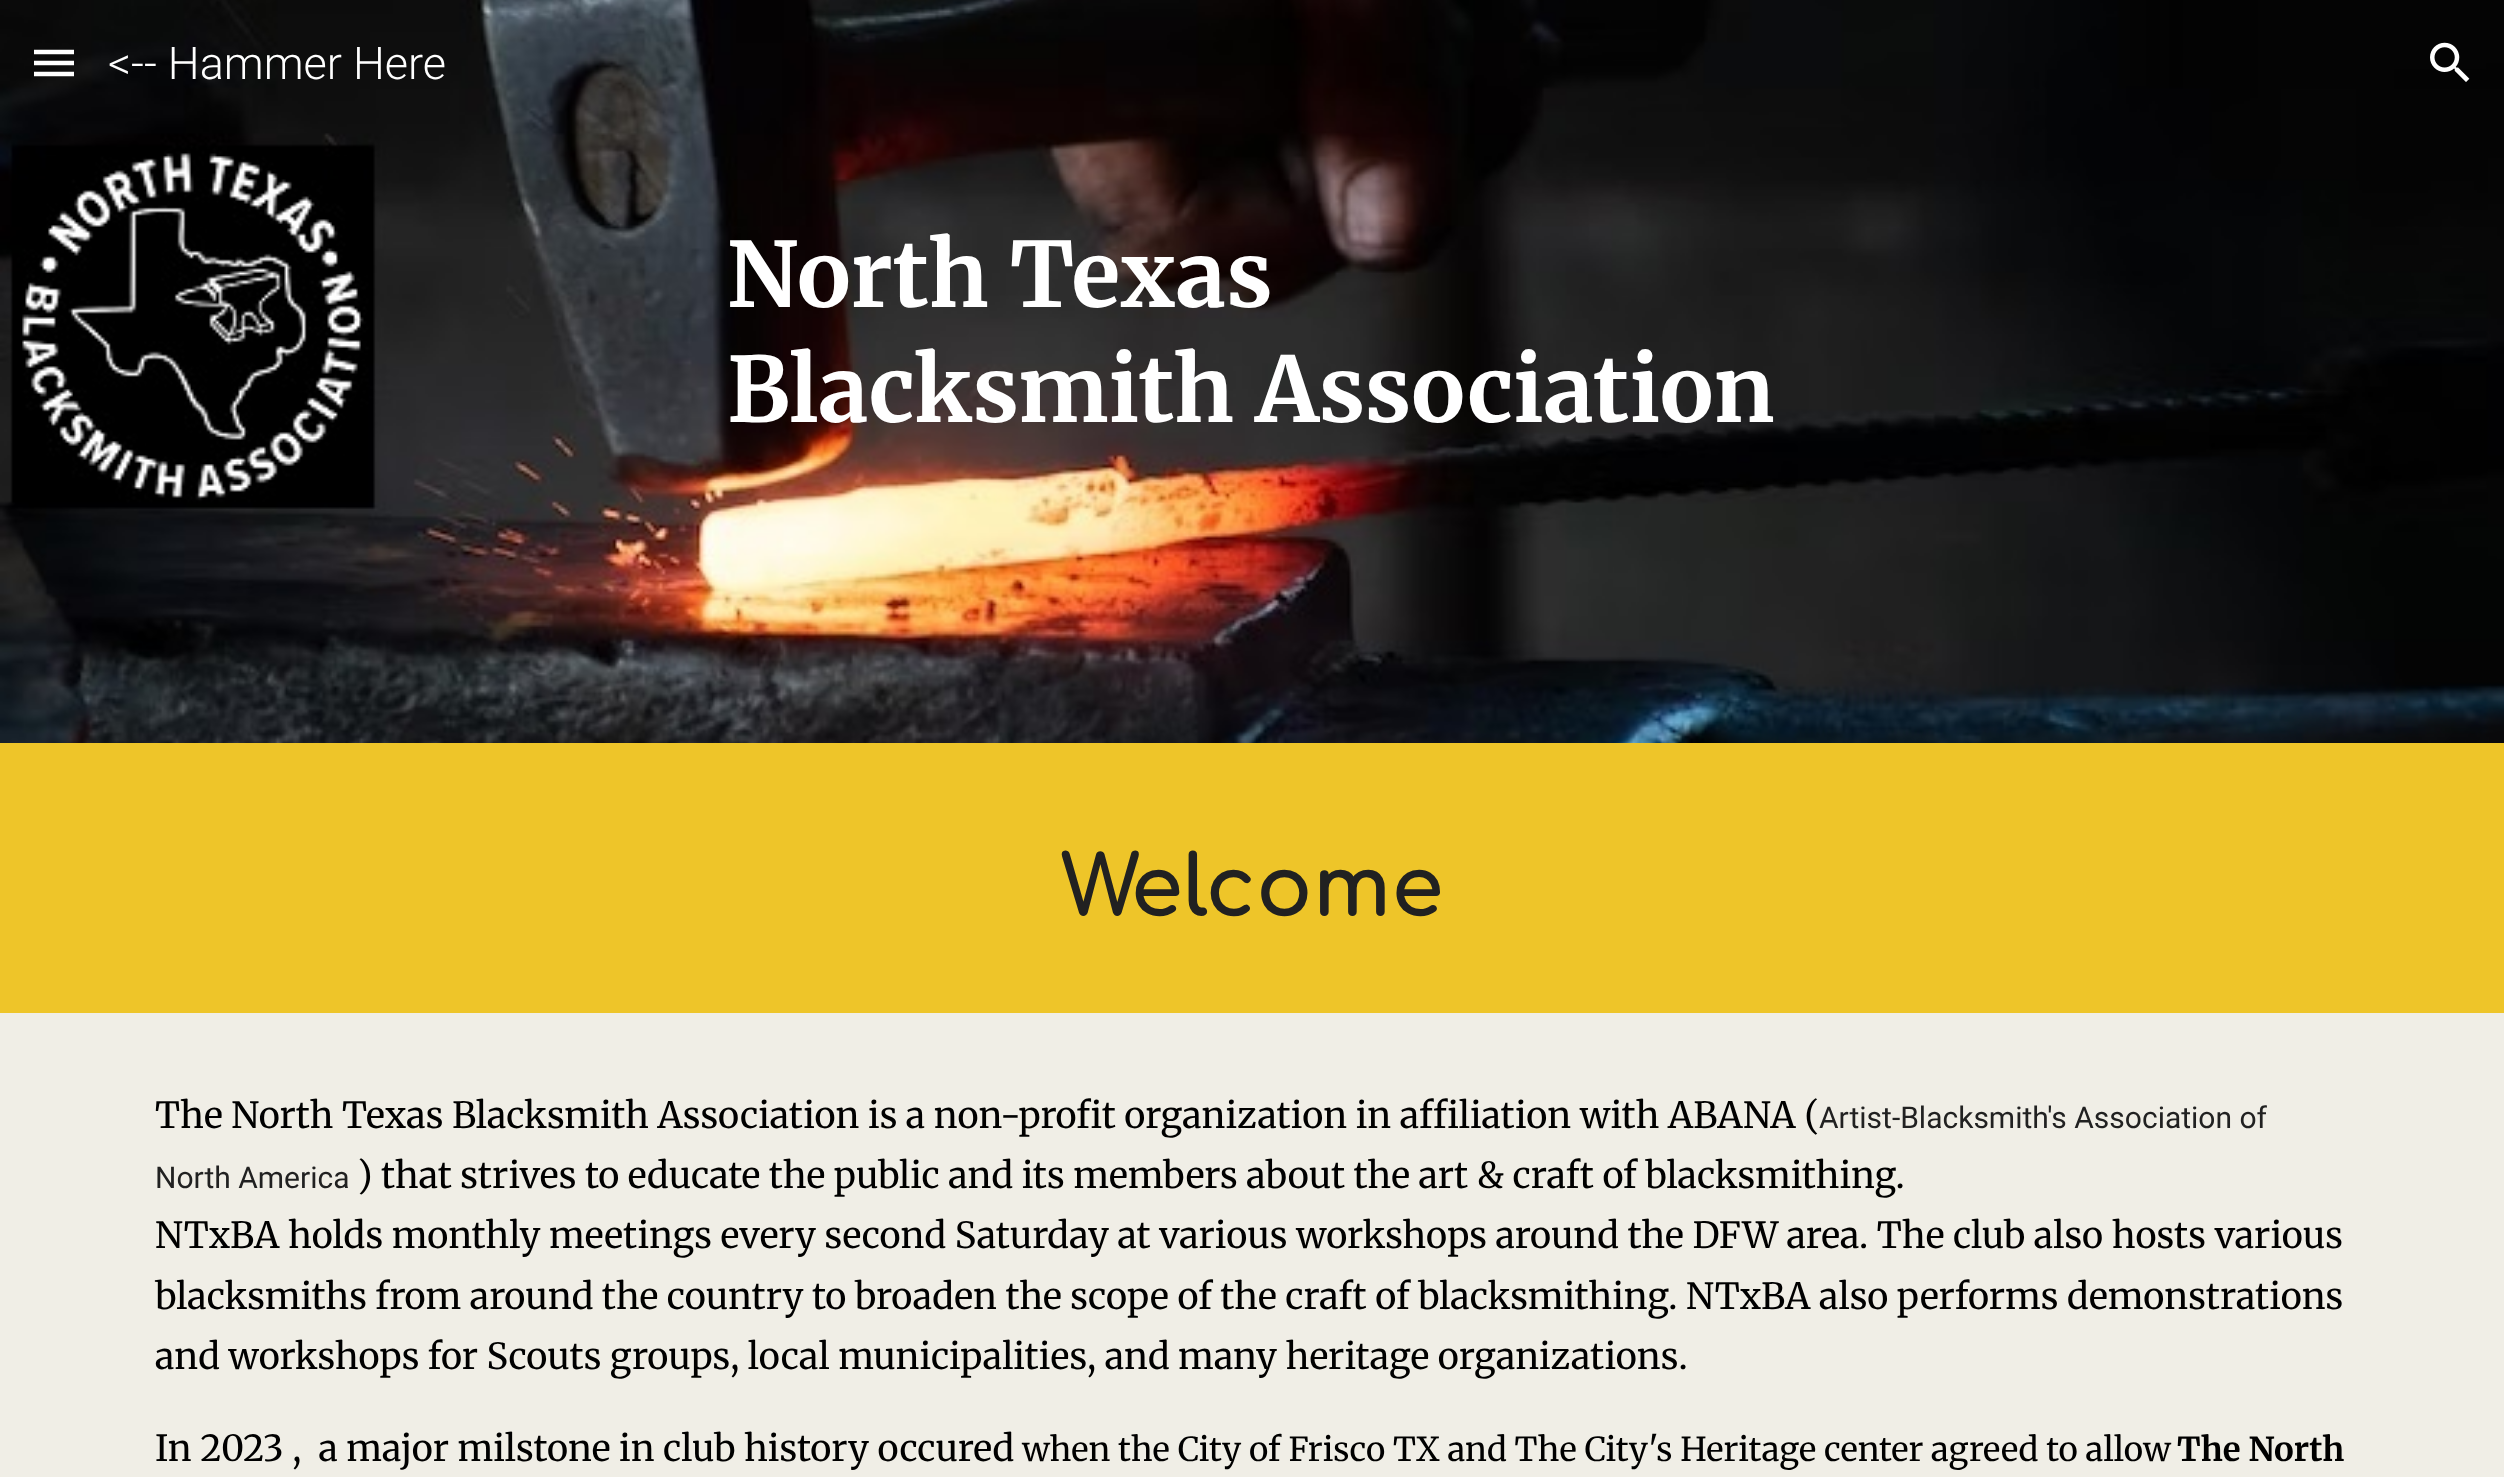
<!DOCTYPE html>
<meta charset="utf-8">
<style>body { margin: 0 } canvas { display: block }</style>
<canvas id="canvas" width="2504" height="1477"></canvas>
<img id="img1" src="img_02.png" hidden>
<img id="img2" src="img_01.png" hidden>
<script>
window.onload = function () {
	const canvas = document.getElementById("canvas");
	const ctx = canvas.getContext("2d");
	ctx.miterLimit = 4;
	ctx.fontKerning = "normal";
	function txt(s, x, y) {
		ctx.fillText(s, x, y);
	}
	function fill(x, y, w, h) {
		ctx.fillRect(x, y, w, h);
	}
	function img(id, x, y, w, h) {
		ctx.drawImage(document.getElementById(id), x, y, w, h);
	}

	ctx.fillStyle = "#F0EEE6";
	fill(0, 0, 2504, 1477);
	img("img1", 0, 0, 2504, 743);
	ctx.beginPath();
	ctx.moveTo(34, 52);
	ctx.lineTo(74, 52);
	ctx.moveTo(34, 63);
	ctx.lineTo(74, 63);
	ctx.moveTo(34, 74);
	ctx.lineTo(74, 74);
	ctx.strokeStyle = "#FFFFFF";
	ctx.lineWidth = 4.5;
	ctx.stroke();
	img("img2", 2430, 42, 40, 40);
	ctx.fillStyle = "#EEC529";
	fill(0, 743, 2504, 270);
	ctx.font = "300 45px Roboto";
	ctx.fillStyle = "#FFFFFF";
	txt("<-- Hammer Here", 108, 79);
	ctx.font = "bold 90px Merriweather";
	txt("North Texas", 727, 307);
	txt("Blacksmith Association", 727, 422);
	ctx.font = "bold 84px Comfortaa";
	ctx.fillStyle = "#212121";
	txt("Welcome", 1061, 916);
	ctx.font = "36px Merriweather";
	ctx.fillStyle = "#000000";
	txt("The North Texas Blacksmith Association is a non-profit organization in affiliation with ABANA (", 155, 1128);
	ctx.font = "30px Roboto";
	ctx.fillStyle = "#212121";
	txt("Artist-Blacksmith's Association of", 1819, 1128);
	txt("North America", 155, 1188);
	ctx.font = "36px Merriweather";
	ctx.fillStyle = "#000000";
	txt(") that strives to educate the public and its members about the art & craft of blacksmithing.", 357, 1188);
	txt("NTxBA holds monthly meetings every second Saturday at various workshops around the DFW area. The club also hosts various", 155, 1248);
	txt("blacksmiths from around the country to broaden the scope of the craft of blacksmithing. NTxBA also performs demonstrations", 155, 1309);
	txt("and workshops for Scouts groups, local municipalities, and many heritage organizations.", 155, 1369);
	txt("In 2023 ,  a major milstone in club history occured", 155, 1461);
	ctx.font = "33px Merriweather";
	txt("when the City of Frisco TX and The City's Heritage center agreed to allow", 1022, 1461);
	ctx.font = "bold 33px Merriweather";
	txt("The North", 2177, 1461);
};
</script>
